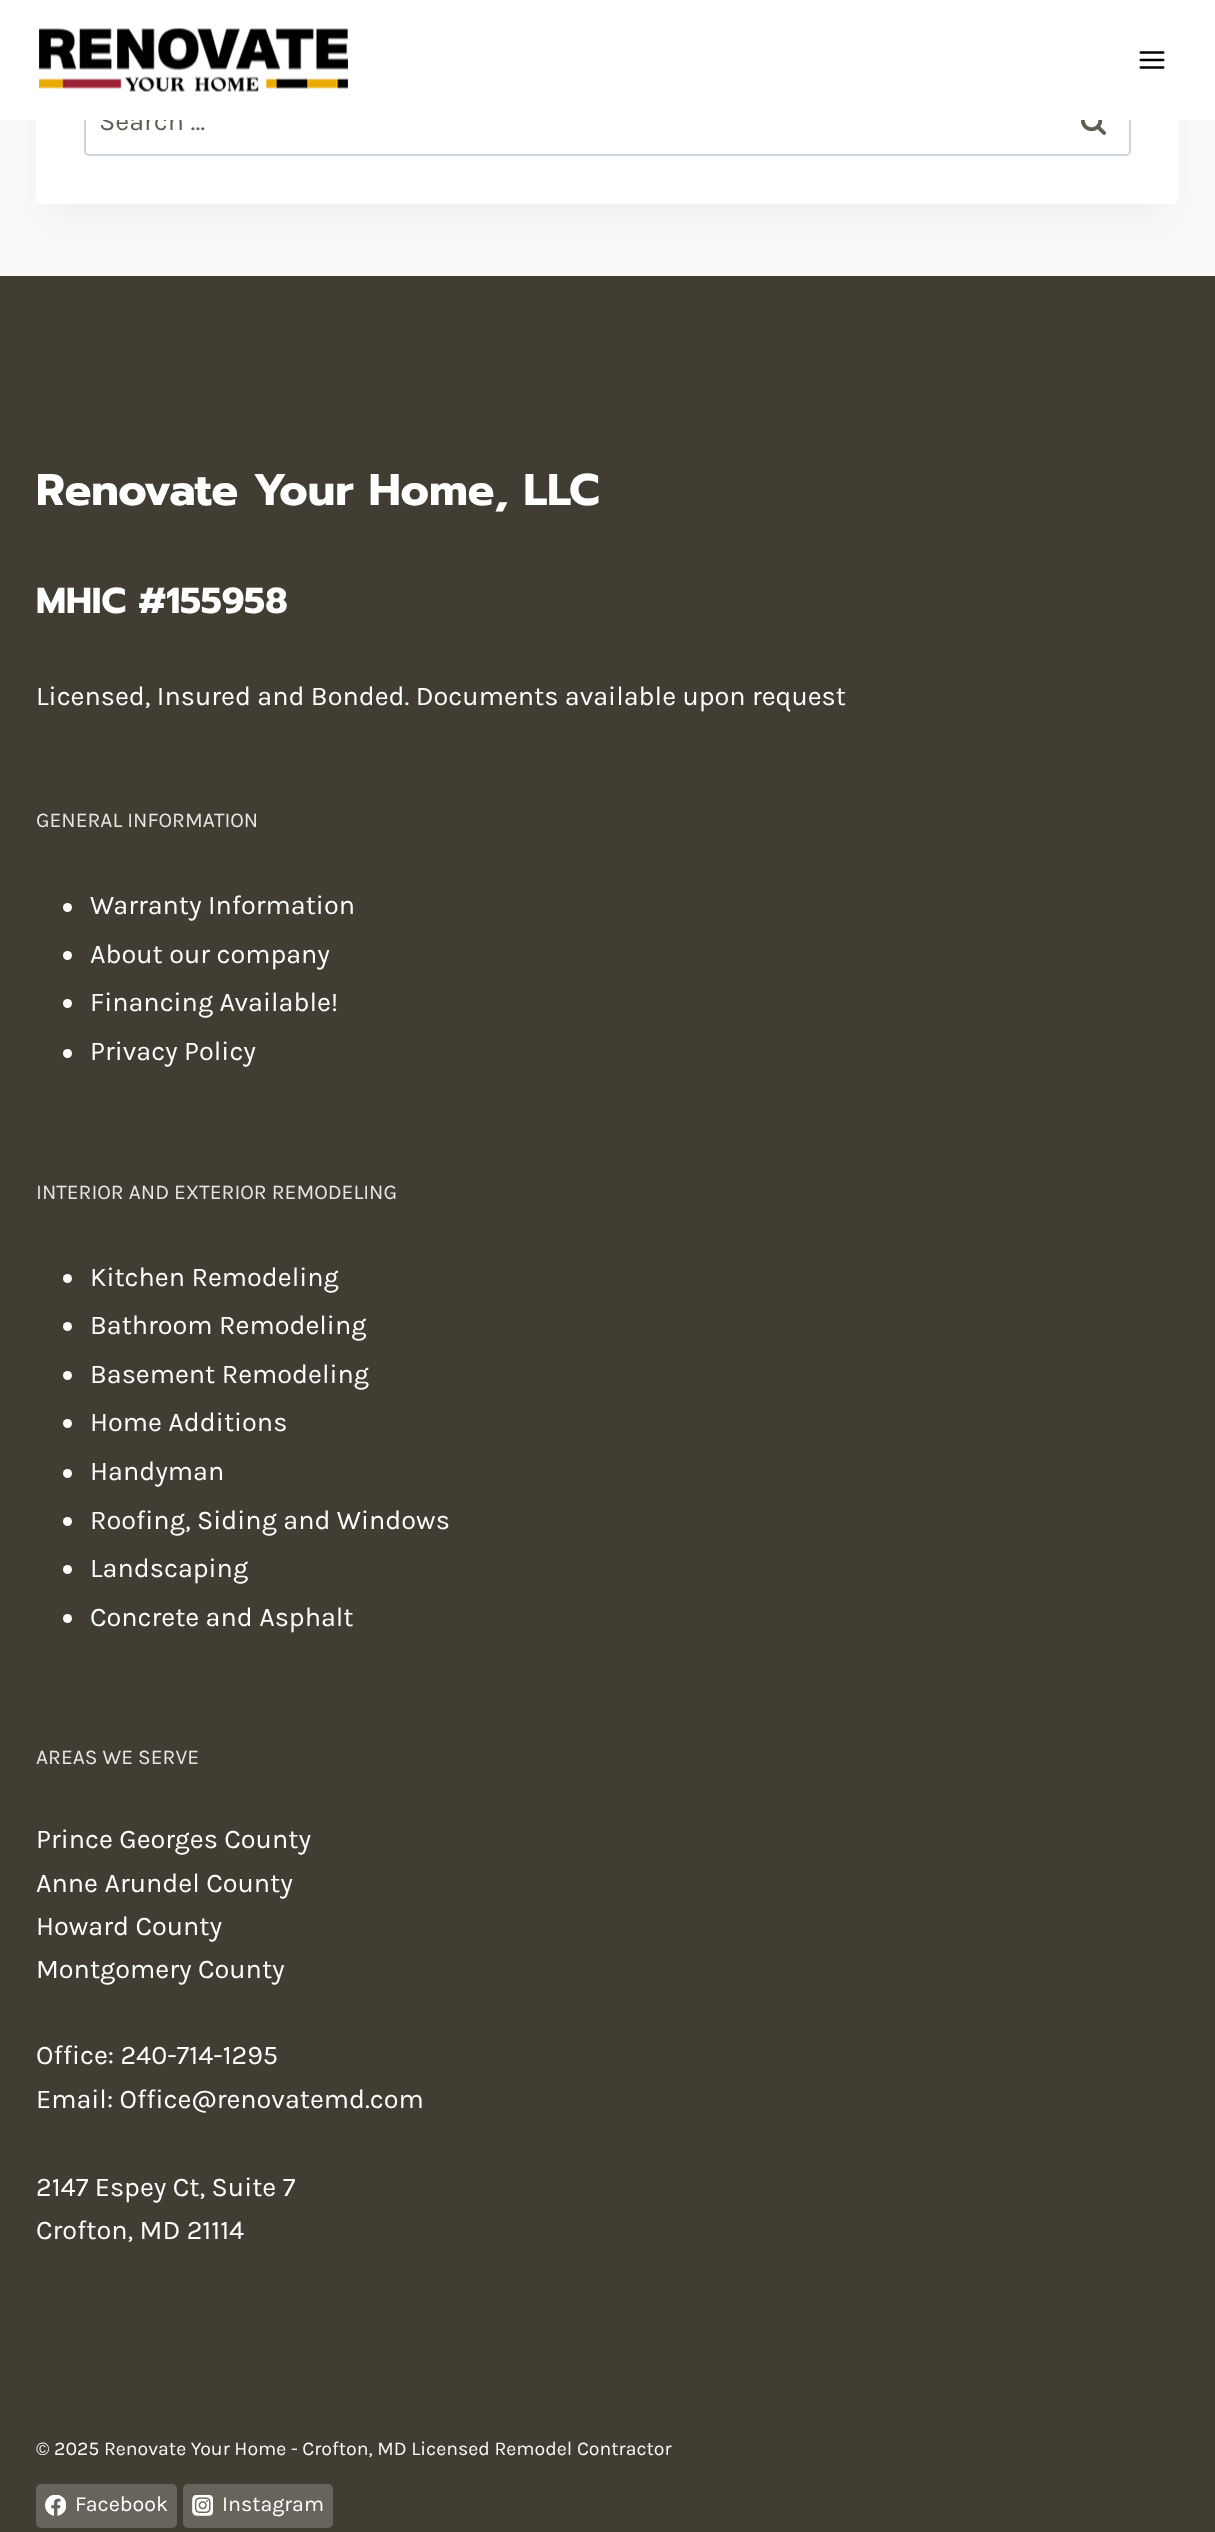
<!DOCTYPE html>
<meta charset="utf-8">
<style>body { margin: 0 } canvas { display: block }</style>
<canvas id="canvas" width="1215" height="2532"></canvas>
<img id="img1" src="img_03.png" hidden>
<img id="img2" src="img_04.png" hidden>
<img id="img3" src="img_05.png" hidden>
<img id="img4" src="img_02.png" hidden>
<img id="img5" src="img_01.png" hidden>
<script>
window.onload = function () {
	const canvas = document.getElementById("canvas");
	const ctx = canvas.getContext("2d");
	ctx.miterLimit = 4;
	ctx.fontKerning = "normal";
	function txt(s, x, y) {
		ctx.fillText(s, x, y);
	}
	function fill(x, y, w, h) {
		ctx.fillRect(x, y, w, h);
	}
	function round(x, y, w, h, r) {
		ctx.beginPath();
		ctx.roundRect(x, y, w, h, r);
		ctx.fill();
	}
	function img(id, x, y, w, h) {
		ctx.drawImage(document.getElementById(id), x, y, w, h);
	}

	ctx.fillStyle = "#FAF9F7";
	fill(0, 0, 1215, 2532);
	ctx.fillStyle = "rgba(0, 0, 0, 0.05)";
	ctx.filter = "blur(19px)";
	ctx.beginPath();
	ctx.rect(51, -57, 1113, 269);
	ctx.fill();
	ctx.filter = "none";
	ctx.fillStyle = "#FFFFFF";
	round(36, -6, 1143, 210, 6);
	ctx.beginPath();
	ctx.roundRect(85, 90, 1045, 65, 4);
	ctx.strokeStyle = "#CBD5E0";
	ctx.lineWidth = 2;
	ctx.stroke();
	img("img1", 1081, 120, 25, 15);
	ctx.fillStyle = "#423D33";
	fill(0, 276, 1215, 2256);
	ctx.fillStyle = "#FFFFFF";
	ctx.beginPath();
	ctx.arc(67.5, 907.5, 4.5, 0, Math.PI * 2);
	ctx.fill();
	ctx.beginPath();
	ctx.arc(67.5, 955.5, 4.5, 0, Math.PI * 2);
	ctx.fill();
	ctx.beginPath();
	ctx.arc(67.5, 1003.5, 4.5, 0, Math.PI * 2);
	ctx.fill();
	ctx.beginPath();
	ctx.arc(67.5, 1053.5, 4.5, 0, Math.PI * 2);
	ctx.fill();
	ctx.beginPath();
	ctx.arc(67.5, 1278.5, 4.5, 0, Math.PI * 2);
	ctx.fill();
	ctx.beginPath();
	ctx.arc(67.5, 1326.5, 4.5, 0, Math.PI * 2);
	ctx.fill();
	ctx.beginPath();
	ctx.arc(67.5, 1375.5, 4.5, 0, Math.PI * 2);
	ctx.fill();
	ctx.beginPath();
	ctx.arc(67.5, 1423.5, 4.5, 0, Math.PI * 2);
	ctx.fill();
	ctx.beginPath();
	ctx.arc(67.5, 1473.5, 4.5, 0, Math.PI * 2);
	ctx.fill();
	ctx.beginPath();
	ctx.arc(67.5, 1521.5, 4.5, 0, Math.PI * 2);
	ctx.fill();
	ctx.beginPath();
	ctx.arc(67.5, 1569.5, 4.5, 0, Math.PI * 2);
	ctx.fill();
	ctx.beginPath();
	ctx.arc(67.5, 1618.5, 4.5, 0, Math.PI * 2);
	ctx.fill();
	ctx.fillStyle = "#68645C";
	round(36, 2484, 141, 44, 5);
	img("img2", 45, 2495, 21, 21);
	round(183, 2484, 150, 44, 5);
	img("img3", 192, 2495, 21, 21);
	ctx.font = "27px Karla";
	ctx.fillStyle = "#625D52";
	txt("Search …", 99, 130);
	ctx.fillStyle = "#FFFFFF";
	fill(0, 0, 1215, 120);
	img("img4", 1139, 51, 26, 18);
	img("img5", 39, 28, 309, 64);
	ctx.font = "bold 44.4px Prompt";
	txt("Renovate Your Home, LLC", 36, 505);
	ctx.font = "bold 36px Prompt";
	txt("MHIC #155958", 36, 613);
	ctx.font = "27px Karla";
	txt("Licensed, Insured and Bonded. Documents available upon request", 36, 705);
	ctx.font = "21px Karla";
	ctx.fillStyle = "#E8E6E1";
	txt("GENERAL INFORMATION", 36, 827);
	ctx.font = "27px Karla";
	ctx.fillStyle = "#FFFFFF";
	txt("Warranty Information", 90, 914);
	txt("About our company", 90, 963);
	txt("Financing Available!", 90, 1011);
	txt("Privacy Policy", 90, 1060);
	ctx.font = "21px Karla";
	ctx.fillStyle = "#E8E6E1";
	txt("INTERIOR AND EXTERIOR REMODELING", 36, 1199);
	ctx.font = "27px Karla";
	ctx.fillStyle = "#FFFFFF";
	txt("Kitchen Remodeling", 90, 1286);
	txt("Bathroom Remodeling", 90, 1334);
	txt("Basement Remodeling", 90, 1383);
	txt("Home Additions", 90, 1431);
	txt("Handyman", 90, 1480);
	txt("Roofing, Siding and Windows", 90, 1529);
	txt("Landscaping", 90, 1577);
	txt("Concrete and Asphalt", 90, 1626);
	ctx.font = "21px Karla";
	ctx.fillStyle = "#E8E6E1";
	txt("AREAS WE SERVE", 36, 1764);
	ctx.font = "27px Karla";
	ctx.fillStyle = "#FFFFFF";
	txt("Prince Georges County", 36, 1848);
	txt("Anne Arundel County", 36, 1892);
	txt("Howard County", 36, 1935);
	txt("Montgomery County", 36, 1978);
	txt("Office: 240-714-1295", 36, 2064);
	txt("Email: Office@renovatemd.com", 36, 2108);
	txt("2147 Espey Ct, Suite 7", 36, 2196);
	txt("Crofton, MD 21114", 36, 2239);
	ctx.font = "19.5px Karla";
	ctx.fillStyle = "#FAF9F7";
	txt("© 2025 Renovate Your Home - Crofton, MD Licensed Remodel Contractor", 36, 2455);
	ctx.font = "21.5px Karla";
	ctx.fillStyle = "#FFFFFF";
	txt("Facebook", 75, 2511);
	txt("Instagram", 222, 2511);
};
</script>
